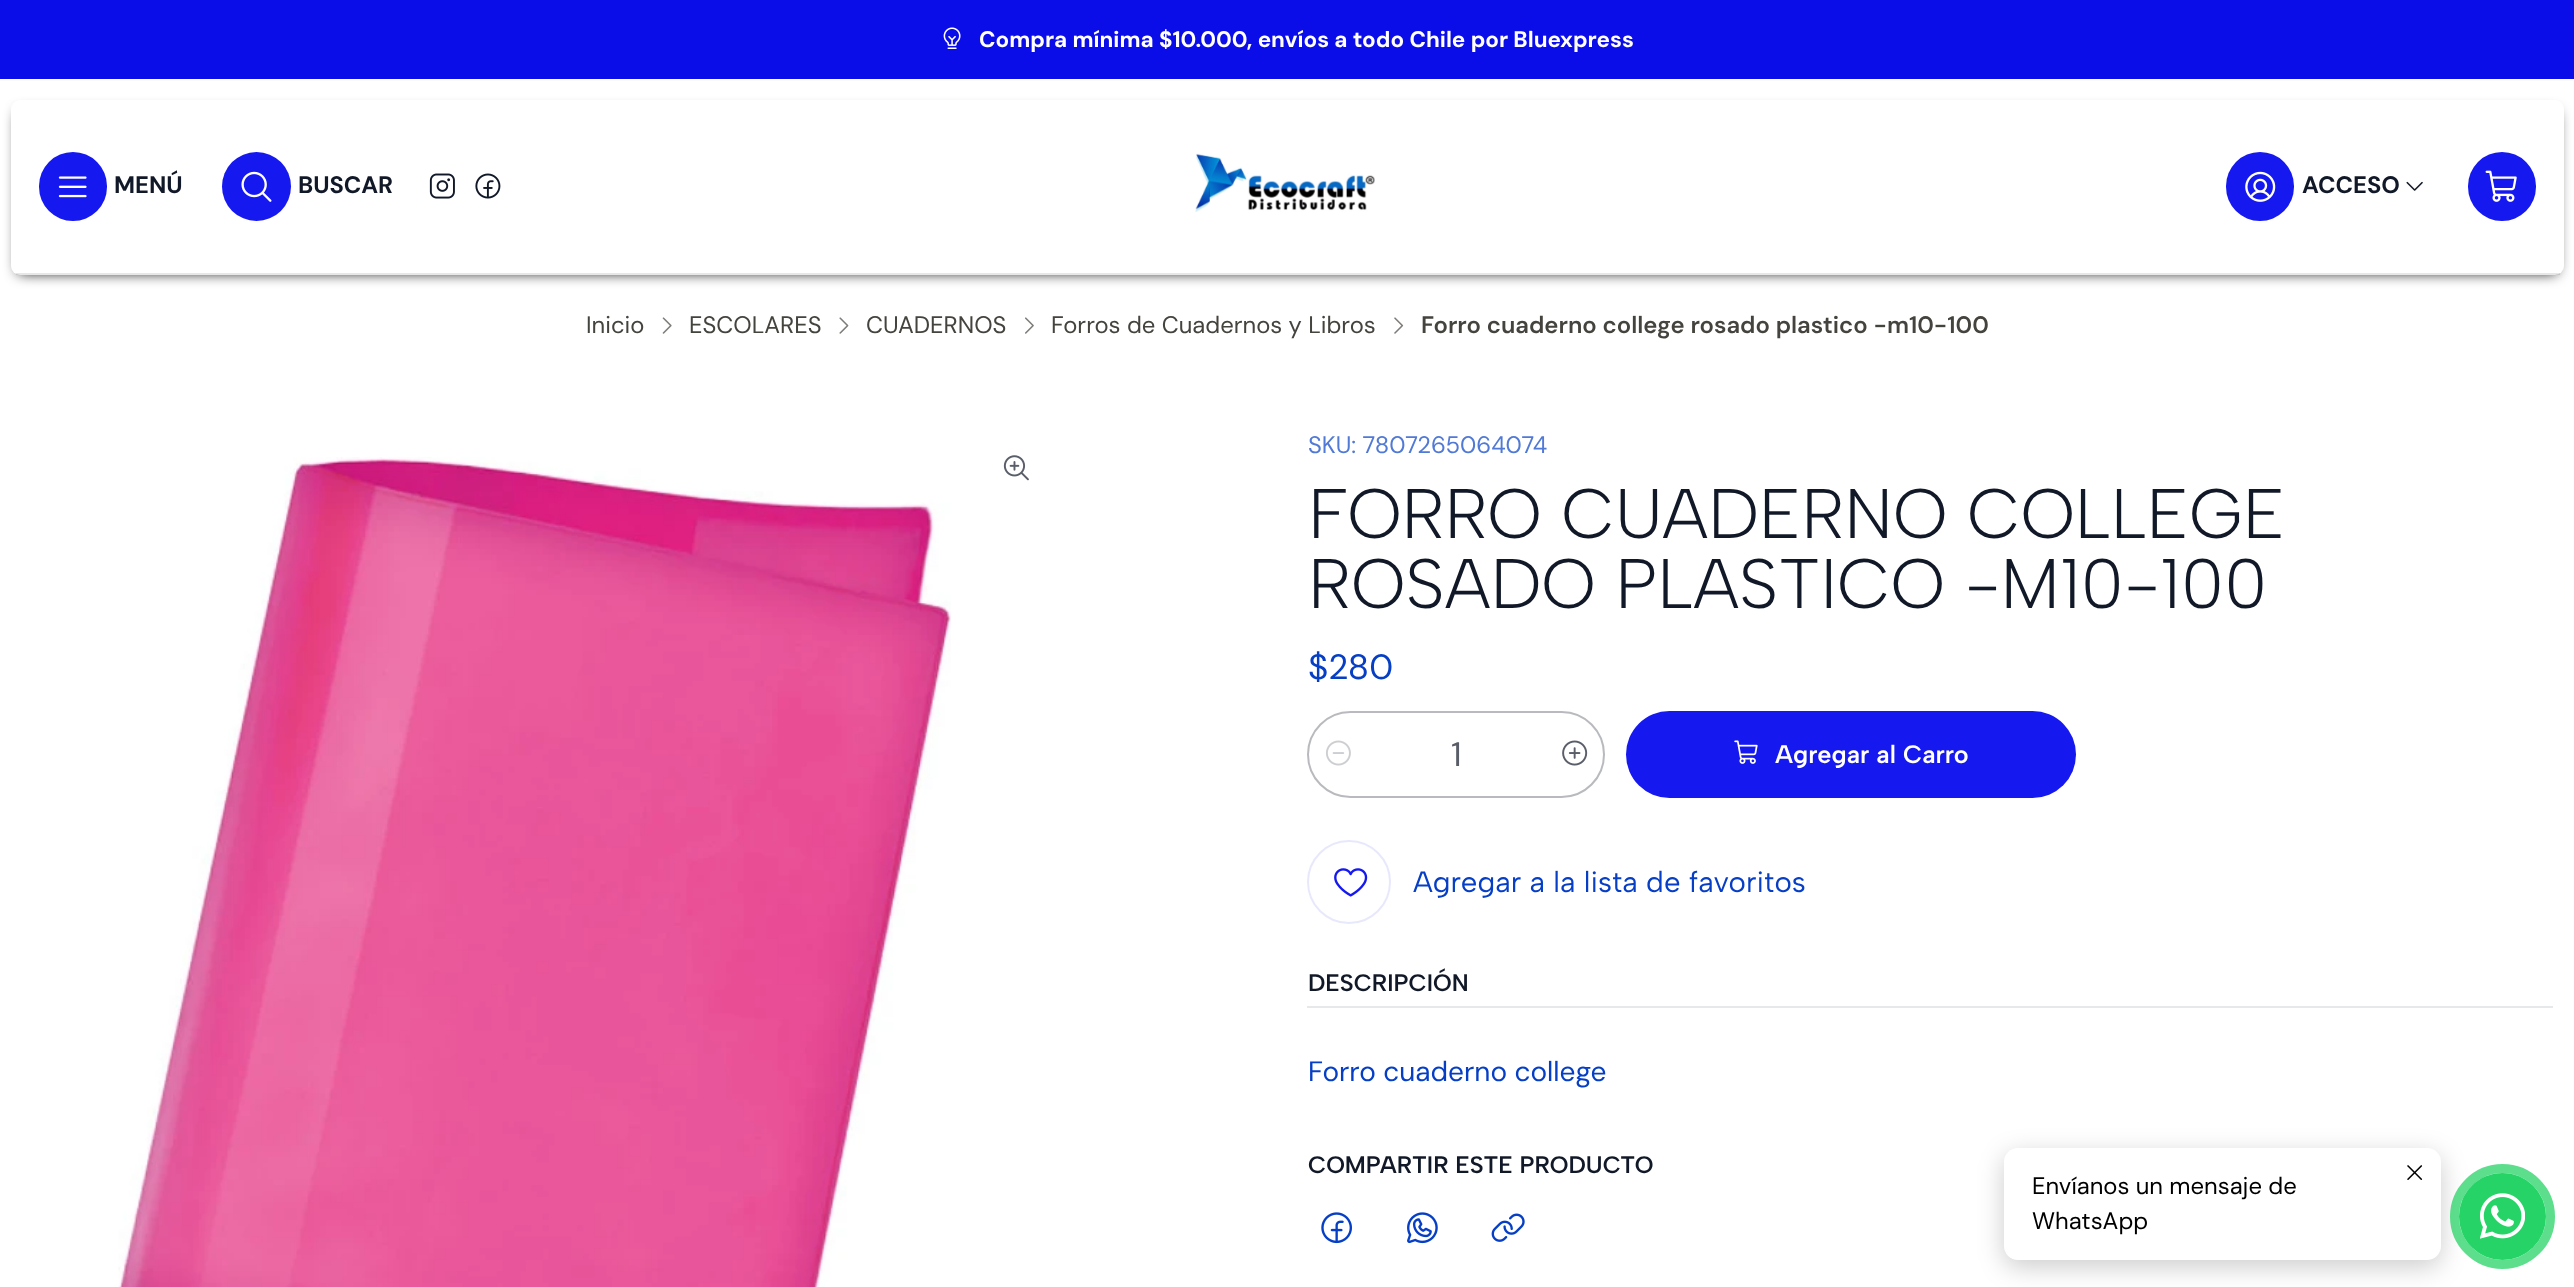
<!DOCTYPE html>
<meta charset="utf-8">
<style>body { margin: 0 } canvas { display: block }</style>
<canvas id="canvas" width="2574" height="1287"></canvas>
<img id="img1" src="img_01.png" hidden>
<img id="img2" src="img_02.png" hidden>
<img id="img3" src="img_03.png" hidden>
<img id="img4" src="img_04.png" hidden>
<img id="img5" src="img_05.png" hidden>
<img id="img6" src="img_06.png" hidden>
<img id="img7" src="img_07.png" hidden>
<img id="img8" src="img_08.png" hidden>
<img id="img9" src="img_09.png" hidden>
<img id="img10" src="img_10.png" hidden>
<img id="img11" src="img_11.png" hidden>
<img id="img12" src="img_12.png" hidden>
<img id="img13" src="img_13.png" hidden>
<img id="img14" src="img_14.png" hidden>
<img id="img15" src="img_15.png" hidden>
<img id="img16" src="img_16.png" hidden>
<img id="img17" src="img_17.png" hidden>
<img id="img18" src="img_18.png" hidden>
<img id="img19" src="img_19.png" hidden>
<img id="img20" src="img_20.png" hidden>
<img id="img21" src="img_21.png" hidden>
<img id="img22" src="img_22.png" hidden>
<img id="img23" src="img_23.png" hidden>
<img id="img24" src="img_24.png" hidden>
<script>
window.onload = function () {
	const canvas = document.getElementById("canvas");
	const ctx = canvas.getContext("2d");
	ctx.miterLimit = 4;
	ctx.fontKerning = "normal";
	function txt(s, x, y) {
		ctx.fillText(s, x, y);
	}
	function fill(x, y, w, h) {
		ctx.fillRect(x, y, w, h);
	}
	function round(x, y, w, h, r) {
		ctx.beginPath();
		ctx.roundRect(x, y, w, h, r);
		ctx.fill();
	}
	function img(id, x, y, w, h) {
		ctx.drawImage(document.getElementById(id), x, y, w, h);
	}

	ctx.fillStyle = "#FFFFFF";
	fill(0, 0, 2574, 1287);
	ctx.fillStyle = "#0B0DE9";
	fill(0, 0, 2574, 79);
	img("img1", 943, 27, 18, 22);
	ctx.fillStyle = "rgba(0, 0, 0, 0.98)";
	ctx.filter = "blur(7px)";
	ctx.beginPath();
	ctx.roundRect(18, 112, 2539, 161, 2);
	ctx.fill();
	ctx.filter = "none";
	ctx.fillStyle = "#FFFFFF";
	round(11, 100, 2553, 175, 9);
	ctx.fillStyle = "rgba(17, 24, 39, 0.1)";
	fill(16, 273, 2544, 2);
	ctx.fillStyle = "#1518EF";
	round(39, 152, 68, 69, 34);
	img("img2", 58, 176, 29, 22);
	ctx.beginPath();
	ctx.arc(256.5, 186.5, 34.5, 0, Math.PI * 2);
	ctx.fill();
	img("img3", 241, 171, 31, 31);
	img("img4", 429, 173, 26, 26);
	img("img5", 475, 173, 26, 26);
	img("img6", 1195, 153, 180, 59);
	round(2226, 152, 68, 69, 34);
	img("img7", 2245, 171, 31, 31);
	img("img8", 2406, 181, 17, 10);
	round(2468, 152, 68, 69, 34);
	img("img9", 2485, 170, 32, 32);
	img("img10", 662, 317, 10, 17);
	img("img11", 839, 317, 10, 17);
	img("img12", 1025, 317, 9, 17);
	img("img13", 1394, 317, 10, 17);
	img("img14", 118, 457, 833, 830);
	img("img15", 1003, 455, 26, 26);
	ctx.beginPath();
	ctx.roundRect(1308, 712, 296, 85, 42.5);
	ctx.strokeStyle = "#B8BABE";
	ctx.lineWidth = 2;
	ctx.stroke();
	img("img16", 1326, 740, 25, 26);
	img("img17", 1562, 740, 26, 26);
	round(1626, 711, 450, 87, 43.5);
	img("img18", 1734, 740, 24, 24);
	ctx.beginPath();
	ctx.arc(1349, 882, 41, 0, Math.PI * 2);
	ctx.strokeStyle = "#E8E8FD";
	ctx.stroke();
	img("img19", 1334, 868, 34, 29);
	ctx.fillStyle = "#E7E8E9";
	fill(1307, 1006, 1246, 2);
	img("img20", 1321, 1212, 31, 32);
	img("img21", 1407, 1212, 31, 32);
	img("img22", 1491, 1213, 34, 29);
	ctx.fillStyle = "rgba(0, 0, 0, 0.2)";
	ctx.filter = "blur(13px)";
	ctx.beginPath();
	ctx.roundRect(2004, 1155, 437, 112, 14);
	ctx.fill();
	ctx.filter = "none";
	ctx.fillStyle = "#FFFFFF";
	round(2004, 1148, 437, 112, 14);
	img("img23", 2407, 1165, 16, 15);
	ctx.fillStyle = "#25D366";
	ctx.beginPath();
	ctx.arc(2502.5, 1216.5, 43.5, 0, Math.PI * 2);
	ctx.fill();
	img("img24", 2480, 1193, 45, 46);
	ctx.beginPath();
	ctx.arc(2502.5, 1216.5, 48, 0, Math.PI * 2);
	ctx.strokeStyle = "rgba(37, 211, 102, 0.75)";
	ctx.lineWidth = 9;
	ctx.stroke();
	ctx.font = "bold 22.4px DM Sans";
	ctx.fillStyle = "#FFFFFF";
	txt("Compra mínima $10.000, envíos a todo Chile por Bluexpress", 979, 47);
	ctx.font = "bold 23.8px DM Sans";
	ctx.fillStyle = "#111827";
	txt("MENÚ", 114, 193);
	txt("BUSCAR", 298, 193);
	txt("ACCESO", 2302, 193);
	ctx.font = "23.8px DM Sans";
	ctx.fillStyle = "#45433E";
	txt("Inicio", 586, 333);
	txt("ESCOLARES", 689, 333);
	txt("CUADERNOS", 866, 333);
	txt("Forros de Cuadernos y Libros", 1051, 333);
	ctx.font = "600 23.8px DM Sans";
	txt("Forro cuaderno college rosado plastico -m10-100", 1421, 333);
	ctx.font = "23.8px DM Sans";
	ctx.fillStyle = "#5179D6";
	txt("SKU: 7807265064074", 1308, 453);
	ctx.font = "300 70px Albert Sans";
	ctx.fillStyle = "#111827";
	txt("FORRO CUADERNO COLLEGE", 1308, 538);
	txt("ROSADO PLASTICO -M10-100", 1308, 608);
	ctx.font = "35px DM Sans";
	ctx.fillStyle = "#063FC5";
	txt("$280", 1308, 679);
	ctx.font = "34px DM Sans";
	ctx.fillStyle = "#585D68";
	txt("1", 1451, 766);
	ctx.font = "600 25.25px Albert Sans";
	ctx.fillStyle = "#FFFFFF";
	txt("Agregar al Carro", 1775, 763);
	ctx.font = "29.4px Albert Sans";
	ctx.fillStyle = "#063FC5";
	txt("Agregar a la lista de favoritos", 1413, 892);
	ctx.font = "600 23.8px Albert Sans";
	ctx.fillStyle = "#111827";
	txt("DESCRIPCIÓN", 1308, 991);
	ctx.font = "28px DM Sans";
	ctx.fillStyle = "#063FC5";
	txt("Forro cuaderno college", 1308, 1081);
	ctx.font = "600 23.8px Albert Sans";
	ctx.fillStyle = "#111827";
	txt("COMPARTIR ESTE PRODUCTO", 1308, 1173);
	ctx.font = "23.8px DM Sans";
	ctx.fillStyle = "#000000";
	txt("Envíanos un mensaje de", 2032, 1194);
	txt("WhatsApp", 2032, 1229);
};
</script>
